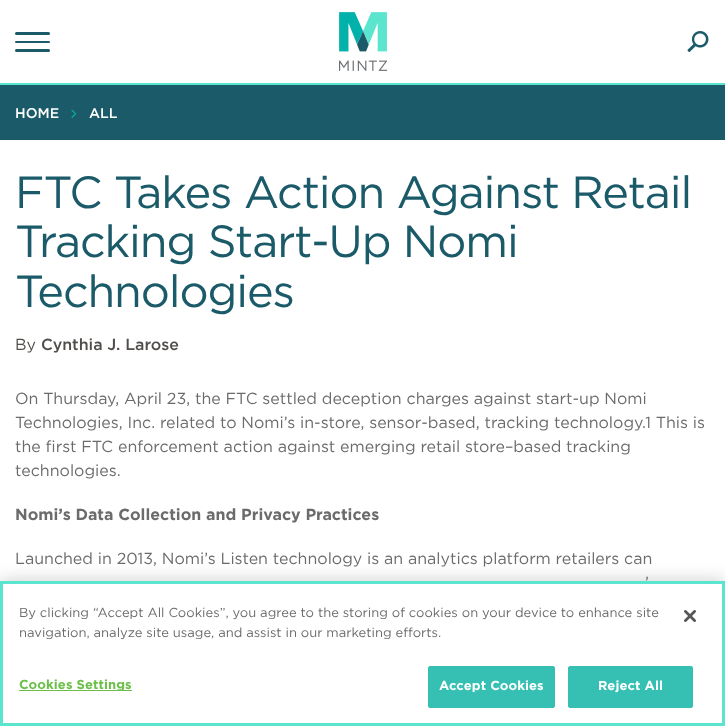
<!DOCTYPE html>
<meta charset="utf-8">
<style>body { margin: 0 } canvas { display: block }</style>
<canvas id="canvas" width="725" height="726"></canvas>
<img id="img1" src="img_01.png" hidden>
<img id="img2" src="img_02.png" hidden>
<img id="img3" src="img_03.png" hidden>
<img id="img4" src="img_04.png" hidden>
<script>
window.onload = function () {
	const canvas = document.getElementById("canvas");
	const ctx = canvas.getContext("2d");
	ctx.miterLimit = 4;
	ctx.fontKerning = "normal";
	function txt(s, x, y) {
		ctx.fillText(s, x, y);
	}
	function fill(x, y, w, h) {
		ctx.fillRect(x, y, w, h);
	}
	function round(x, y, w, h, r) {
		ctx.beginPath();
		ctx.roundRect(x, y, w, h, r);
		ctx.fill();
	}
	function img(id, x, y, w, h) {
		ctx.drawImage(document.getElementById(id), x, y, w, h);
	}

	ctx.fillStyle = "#FFFFFF";
	fill(0, 0, 725, 726);
	ctx.fillStyle = "#5CE5CE";
	fill(0, 83, 725, 2);
	ctx.fillStyle = "#1B5B69";
	round(15, 41, 35, 2, 1);
	round(15, 32, 35, 3, 1.5);
	round(15, 49, 35, 3, 1.5);
	img("img1", 339, 12, 48, 59);
	img("img2", 687, 31, 22, 21);
	fill(0, 85, 725, 55);
	img("img3", 71, 109, 6, 9);
	ctx.fillStyle = "rgba(0, 0, 0, 0.2)";
	ctx.filter = "blur(9px)";
	ctx.beginPath();
	ctx.rect(0, 581, 725, 145);
	ctx.fill();
	ctx.filter = "none";
	ctx.fillStyle = "#FFFFFF";
	ctx.beginPath();
	ctx.rect(1.5, 582.5, 722, 142);
	ctx.fill();
	ctx.strokeStyle = "#5CE5CE";
	ctx.lineWidth = 3;
	ctx.stroke();
	ctx.fillStyle = "#6CC04A";
	fill(19, 690, 113, 1);
	ctx.fillStyle = "#36C0B3";
	ctx.beginPath();
	ctx.roundRect(428.5, 666.5, 126, 41, 1.5);
	ctx.fill();
	ctx.strokeStyle = "#36C0B3";
	ctx.lineWidth = 1;
	ctx.stroke();
	ctx.beginPath();
	ctx.roundRect(568.5, 666.5, 124, 41, 1.5);
	ctx.fill();
	ctx.stroke();
	img("img4", 684, 610, 12, 12);
	ctx.font = "500 14px Gotham";
	ctx.fillStyle = "#FFFFFF";
	txt("HOME", 15, 118);
	txt("ALL", 89, 118);
	ctx.letterSpacing = "-1.1px";
	ctx.font = "45px Gotham";
	ctx.fillStyle = "#1B5B69";
	txt("FTC Takes Action Against Retail", 15, 208);
	txt("Tracking Start-Up Nomi", 15, 257);
	txt("Technologies", 15, 307);
	ctx.letterSpacing = "0px";
	ctx.font = "16px Gotham";
	ctx.fillStyle = "#504D4B";
	txt("By", 15, 350);
	ctx.font = "500 16px Gotham";
	txt("Cynthia J. Larose", 41, 350);
	ctx.font = "16px Gotham";
	ctx.fillStyle = "#6B6B6B";
	txt("On Thursday, April 23, the FTC settled deception charges against start-up Nomi", 15, 404);
	txt("Technologies, Inc. related to Nomi’s in-store, sensor-based, tracking technology.1 This is", 15, 428);
	txt("the first FTC enforcement action against emerging retail store–based tracking", 15, 452);
	txt("technologies.", 15, 476);
	ctx.font = "bold 16px Gotham";
	txt("Nomi’s Data Collection and Privacy Practices", 15, 520);
	ctx.font = "16px Gotham";
	txt("Launched in 2013, Nomi’s Listen technology is an analytics platform retailers can", 15, 564);
	txt("’", 645, 588);
	ctx.font = "13px Gotham";
	txt("By clicking “Accept All Cookies”, you agree to the storing of cookies on your device to enhance site", 19, 617);
	txt("navigation, analyze site usage, and assist in our marketing efforts.", 19, 637);
	ctx.letterSpacing = "0.1px";
	ctx.font = "bold 13px Gotham";
	ctx.fillStyle = "#6CC04A";
	txt("Cookies Settings", 19, 689);
	ctx.fillStyle = "#FFFFFF";
	txt("Accept Cookies", 439, 690);
	txt("Reject All", 598, 690);
};
</script>
